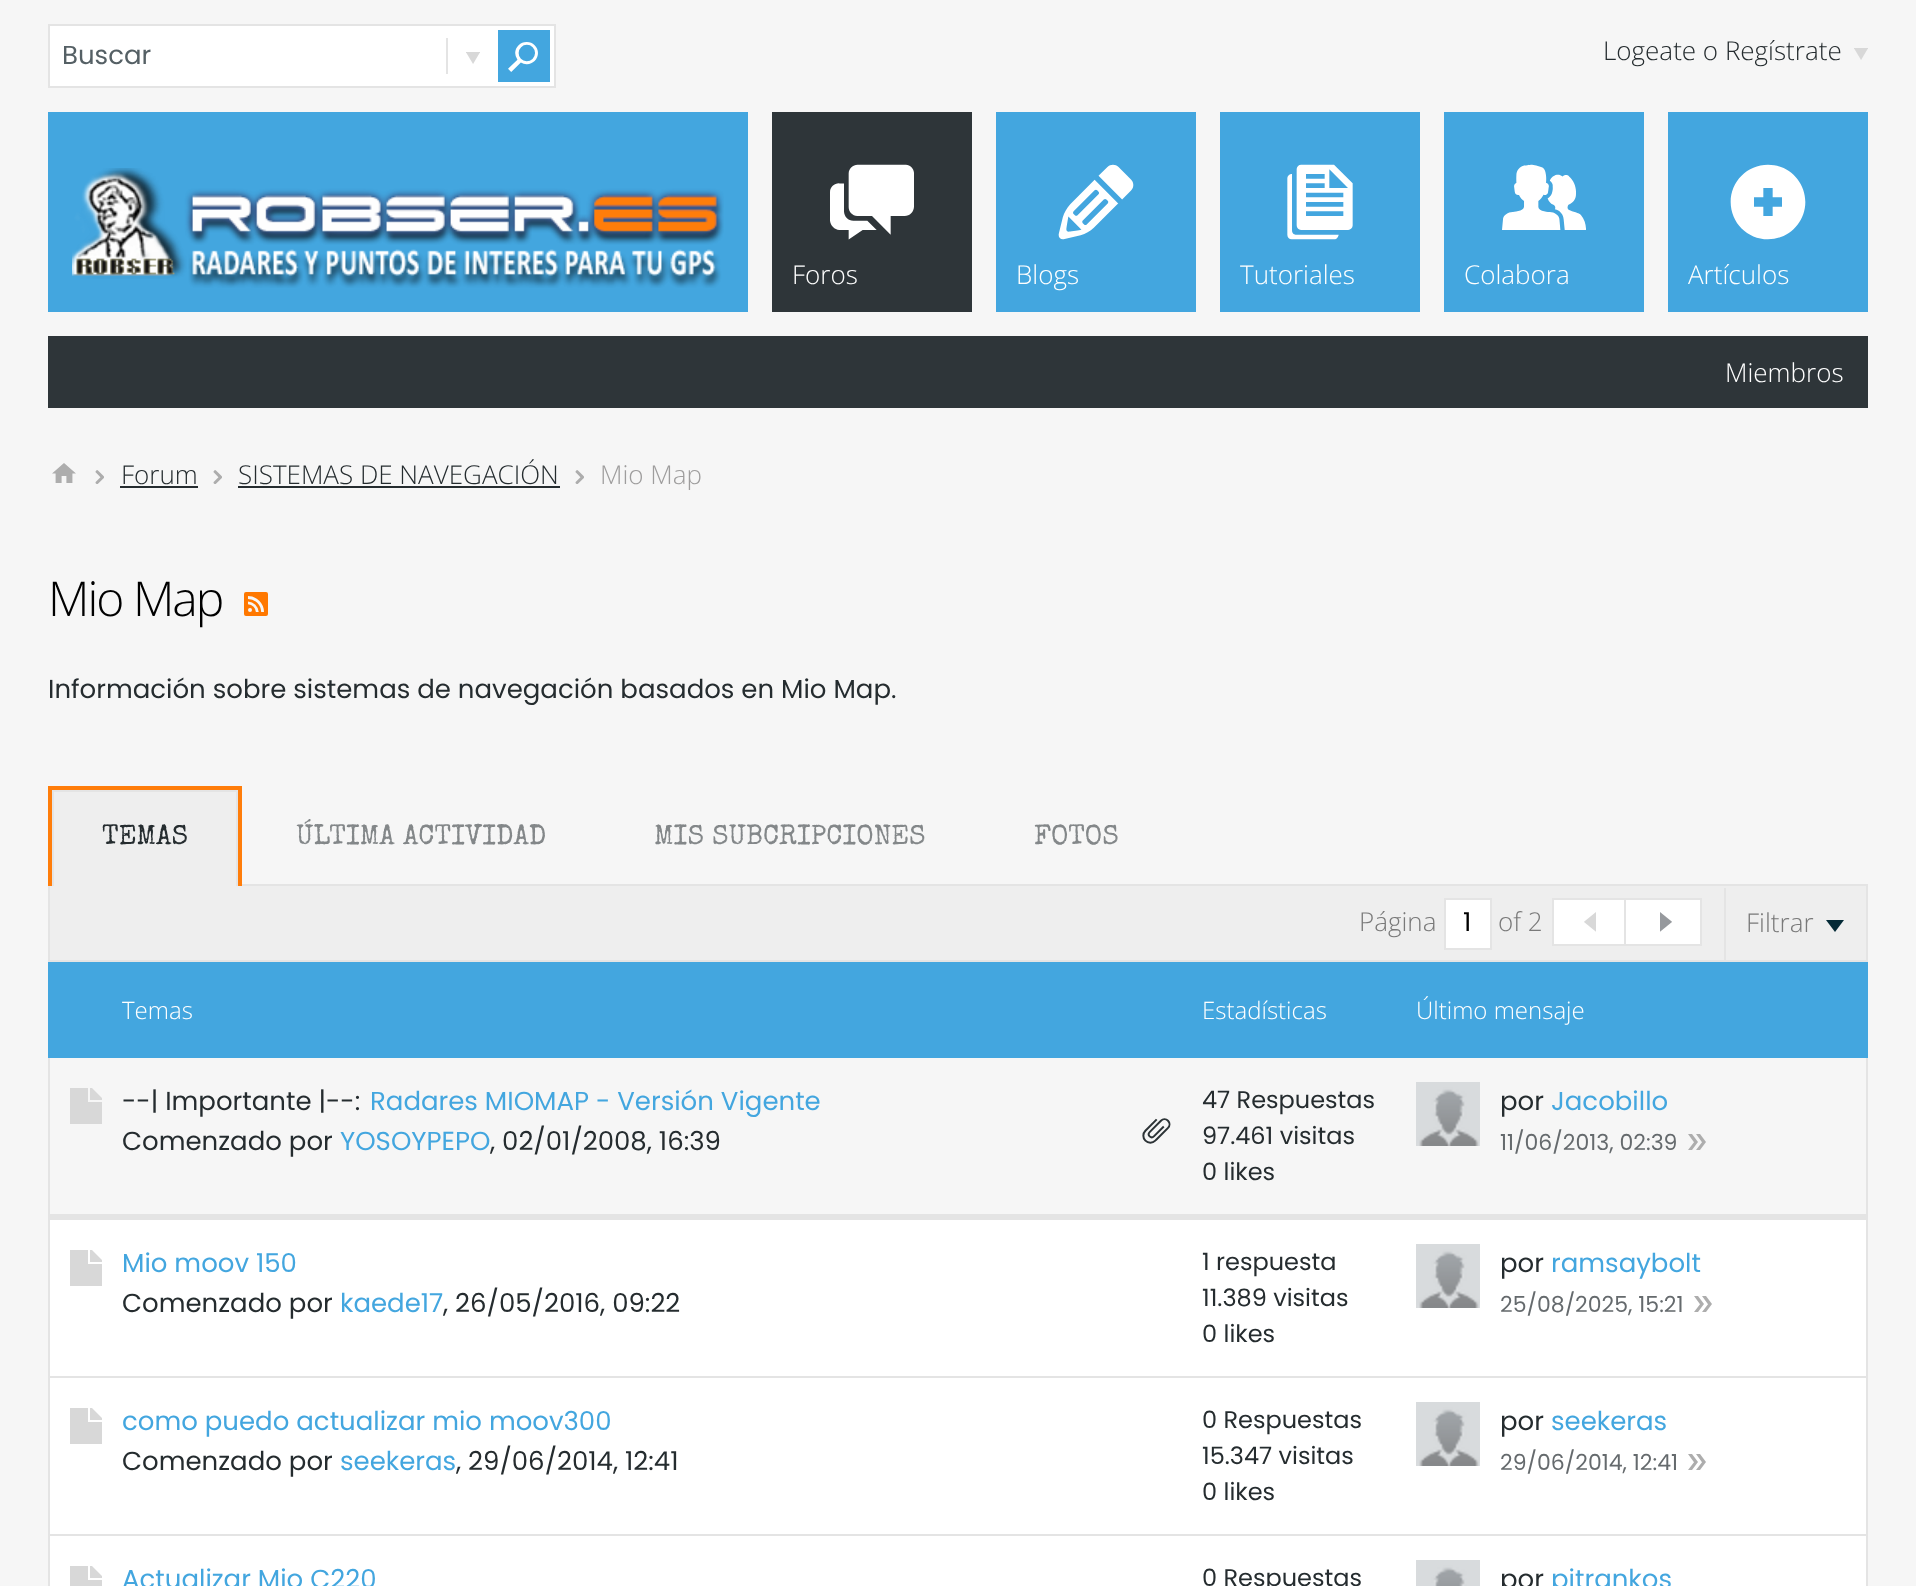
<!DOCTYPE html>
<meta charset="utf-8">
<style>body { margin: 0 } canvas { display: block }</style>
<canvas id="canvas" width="1916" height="1586"></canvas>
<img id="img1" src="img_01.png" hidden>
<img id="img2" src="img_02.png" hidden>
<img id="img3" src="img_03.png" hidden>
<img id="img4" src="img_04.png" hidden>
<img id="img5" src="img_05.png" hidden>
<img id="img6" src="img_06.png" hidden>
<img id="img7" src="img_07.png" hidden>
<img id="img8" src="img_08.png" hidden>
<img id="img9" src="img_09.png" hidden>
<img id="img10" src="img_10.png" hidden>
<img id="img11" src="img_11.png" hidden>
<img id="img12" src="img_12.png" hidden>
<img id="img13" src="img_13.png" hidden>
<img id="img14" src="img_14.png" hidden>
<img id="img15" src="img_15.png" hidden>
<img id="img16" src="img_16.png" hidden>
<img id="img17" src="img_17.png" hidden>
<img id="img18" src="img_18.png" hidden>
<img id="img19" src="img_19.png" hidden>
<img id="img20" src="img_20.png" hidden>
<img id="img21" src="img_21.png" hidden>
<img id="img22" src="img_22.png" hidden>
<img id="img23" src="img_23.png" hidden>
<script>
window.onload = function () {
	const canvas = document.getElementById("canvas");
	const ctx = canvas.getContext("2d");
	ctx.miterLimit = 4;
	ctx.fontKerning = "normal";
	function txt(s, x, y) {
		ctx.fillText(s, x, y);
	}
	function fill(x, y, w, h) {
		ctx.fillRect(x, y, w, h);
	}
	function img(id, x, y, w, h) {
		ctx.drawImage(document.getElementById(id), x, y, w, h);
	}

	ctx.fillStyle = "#F6F6F6";
	fill(0, 0, 1916, 1586);
	ctx.fillStyle = "#FFFFFF";
	ctx.beginPath();
	ctx.rect(49, 25, 506, 62);
	ctx.fill();
	ctx.strokeStyle = "#E4E4E4";
	ctx.lineWidth = 2;
	ctx.stroke();
	ctx.fillStyle = "#E4E4E4";
	fill(446, 38, 2, 36);
	img("img1", 466, 52, 14, 12);
	ctx.fillStyle = "#43A6DF";
	fill(498, 30, 52, 52);
	img("img2", 508, 42, 30, 30);
	img("img3", 1854, 48, 14, 12);
	fill(48, 112, 700, 200);
	img("img4", 72, 168, 652, 120);
	ctx.fillStyle = "#2E3539";
	fill(772, 112, 200, 200);
	img("img5", 830, 164, 84, 76);
	ctx.fillStyle = "#43A6DF";
	fill(996, 112, 200, 200);
	img("img6", 1058, 164, 76, 76);
	fill(1220, 112, 200, 200);
	img("img7", 1287, 164, 66, 76);
	fill(1444, 112, 200, 200);
	img("img8", 1502, 164, 84, 66);
	fill(1668, 112, 200, 200);
	img("img9", 1730, 164, 76, 76);
	ctx.fillStyle = "#2E3539";
	fill(48, 336, 1820, 72);
	img("img10", 52, 463, 24, 20);
	img("img11", 95, 470, 9, 14);
	ctx.fillStyle = "#252C2F";
	fill(120, 486, 78, 2);
	img("img11", 213, 470, 9, 14);
	fill(238, 486, 322, 2);
	img("img11", 575, 470, 9, 14);
	img("img12", 244, 592, 24, 24);
	ctx.fillStyle = "#FF7D0A";
	fill(48, 786, 194, 4);
	ctx.fillStyle = "#EEEEEE";
	ctx.beginPath();
	ctx.rect(49, 885, 1818, 76);
	ctx.fill();
	ctx.stroke();
	ctx.fillStyle = "#FF7D0A";
	fill(238, 786, 4, 100);
	fill(48, 786, 4, 100);
	ctx.fillStyle = "#EEEEEE";
	fill(54, 792, 182, 94);
	ctx.fillStyle = "#E4E4E4";
	fill(52, 790, 186, 2);
	fill(236, 790, 2, 96);
	fill(52, 790, 2, 96);
	ctx.fillStyle = "#FFFFFF";
	ctx.beginPath();
	ctx.rect(1445, 899, 46, 50);
	ctx.fill();
	ctx.stroke();
	ctx.beginPath();
	ctx.rect(1553, 899, 148, 46);
	ctx.fill();
	ctx.stroke();
	ctx.fillStyle = "#E4E4E4";
	fill(1624, 900, 2, 44);
	img("img13", 1584, 912, 12, 20);
	img("img14", 1660, 912, 12, 20);
	fill(1724, 888, 2, 74);
	img("img15", 1826, 920, 18, 12);
	fill(1866, 1058, 2, 528);
	fill(48, 1058, 2, 528);
	ctx.fillStyle = "#43A6DF";
	fill(48, 962, 1820, 96);
	img("img16", 70, 1088, 32, 36);
	img("img17", 1142, 1118, 29, 26);
	img("img18", 1416, 1082, 64, 64);
	img("img19", 1688, 1134, 18, 16);
	ctx.fillStyle = "#FFFFFF";
	fill(50, 1220, 1816, 366);
	ctx.fillStyle = "#E4E4E4";
	fill(50, 1214, 72, 6);
	img("img20", 70, 1250, 32, 36);
	fill(122, 1214, 1744, 6);
	img("img18", 1416, 1244, 64, 64);
	img("img21", 1694, 1296, 18, 16);
	fill(50, 1376, 72, 2);
	img("img20", 70, 1408, 32, 36);
	fill(122, 1376, 1744, 2);
	img("img18", 1416, 1402, 64, 64);
	img("img21", 1688, 1454, 18, 16);
	fill(50, 1534, 72, 2);
	img("img22", 70, 1566, 32, 20);
	fill(122, 1534, 1744, 2);
	img("img23", 1416, 1560, 64, 26);
	ctx.font = "26px Poppins";
	ctx.fillStyle = "#556065";
	txt("Buscar", 62, 64);
	ctx.font = "300 26px Open Sans";
	ctx.fillStyle = "#252C2F";
	txt("Logeate o Regístrate", 1603, 60);
	ctx.fillStyle = "#FFFFFF";
	txt("Foros", 792, 284);
	txt("Blogs", 1016, 284);
	txt("Tutoriales", 1240, 284);
	txt("Colabora", 1464, 284);
	txt("Artículos", 1688, 284);
	txt("Miembros", 1725, 382);
	ctx.fillStyle = "#252C2F";
	txt("Forum", 121, 484);
	txt("SISTEMAS DE NAVEGACIÓN", 238, 484);
	ctx.fillStyle = "#9E9D9D";
	txt("Mio Map", 600, 484);
	ctx.letterSpacing = "-2px";
	ctx.font = "300 48px Open Sans";
	ctx.fillStyle = "#000000";
	txt("Mio Map", 48, 616);
	ctx.letterSpacing = "0px";
	ctx.font = "26px Poppins";
	ctx.fillStyle = "#252C2F";
	txt("Información sobre sistemas de navegación basados en Mio Map.", 48, 698);
	ctx.font = "28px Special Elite";
	txt("TEMAS", 102, 844);
	ctx.fillStyle = "#838789";
	txt("ÚLTIMA ACTIVIDAD", 296, 844);
	txt("MIS SUBCRIPCIONES", 654, 844);
	txt("FOTOS", 1034, 844);
	ctx.font = "300 26px Open Sans";
	ctx.fillStyle = "#797979";
	txt("Página", 1359, 931);
	ctx.font = "26px Poppins";
	ctx.fillStyle = "#000000";
	txt("1", 1463, 931);
	ctx.font = "300 26px Open Sans";
	ctx.fillStyle = "#797979";
	txt("of 2", 1498, 931);
	txt("Filtrar", 1746, 932);
	ctx.font = "300 24px Open Sans";
	ctx.fillStyle = "#FFFFFF";
	txt("Temas", 122, 1019);
	txt("Estadísticas", 1202, 1019);
	txt("Último mensaje", 1416, 1019);
	ctx.font = "26px Poppins";
	ctx.fillStyle = "#252C2F";
	txt("--| Importante |--:", 122, 1110);
	ctx.fillStyle = "#43A6DF";
	txt("Radares MIOMAP - Versión Vigente", 370, 1110);
	ctx.fillStyle = "#252C2F";
	txt("Comenzado por", 122, 1150);
	ctx.fillStyle = "#43A6DF";
	txt("YOSOYPEPO", 340, 1150);
	ctx.fillStyle = "#252C2F";
	txt(", 02/01/2008, 16:39", 490, 1150);
	ctx.font = "24px Poppins";
	txt("47 Respuestas", 1202, 1108);
	txt("97.461 visitas", 1202, 1144);
	txt("0 likes", 1202, 1180);
	ctx.font = "26px Poppins";
	txt("por", 1500, 1110);
	ctx.fillStyle = "#43A6DF";
	txt("Jacobillo", 1551, 1110);
	ctx.font = "22px Poppins";
	ctx.fillStyle = "#656A6D";
	txt("11/06/2013, 02:39", 1500, 1150);
	ctx.font = "26px Poppins";
	ctx.fillStyle = "#43A6DF";
	txt("Mio moov 150", 122, 1272);
	ctx.fillStyle = "#252C2F";
	txt("Comenzado por", 122, 1312);
	ctx.fillStyle = "#43A6DF";
	txt("kaede17", 340, 1312);
	ctx.fillStyle = "#252C2F";
	txt(", 26/05/2016, 09:22", 443, 1312);
	ctx.font = "24px Poppins";
	txt("1 respuesta", 1202, 1270);
	txt("11.389 visitas", 1202, 1306);
	txt("0 likes", 1202, 1342);
	ctx.font = "26px Poppins";
	txt("por", 1500, 1272);
	ctx.fillStyle = "#43A6DF";
	txt("ramsaybolt", 1551, 1272);
	ctx.font = "22px Poppins";
	ctx.fillStyle = "#656A6D";
	txt("25/08/2025, 15:21", 1500, 1312);
	ctx.font = "26px Poppins";
	ctx.fillStyle = "#43A6DF";
	txt("como puedo actualizar mio moov300", 122, 1430);
	ctx.fillStyle = "#252C2F";
	txt("Comenzado por", 122, 1470);
	ctx.fillStyle = "#43A6DF";
	txt("seekeras", 340, 1470);
	ctx.fillStyle = "#252C2F";
	txt(", 29/06/2014, 12:41", 456, 1470);
	ctx.font = "24px Poppins";
	txt("0 Respuestas", 1202, 1428);
	txt("15.347 visitas", 1202, 1464);
	txt("0 likes", 1202, 1500);
	ctx.font = "26px Poppins";
	txt("por", 1500, 1430);
	ctx.fillStyle = "#43A6DF";
	txt("seekeras", 1551, 1430);
	ctx.font = "22px Poppins";
	ctx.fillStyle = "#656A6D";
	txt("29/06/2014, 12:41", 1500, 1470);
	ctx.font = "26px Poppins";
	ctx.fillStyle = "#43A6DF";
	txt("Actualizar Mio C220", 122, 1588);
	ctx.font = "24px Poppins";
	ctx.fillStyle = "#252C2F";
	txt("0 Respuestas", 1202, 1586);
	ctx.font = "26px Poppins";
	txt("por", 1500, 1588);
	ctx.fillStyle = "#43A6DF";
	txt("pitrankos", 1551, 1588);
};
</script>
